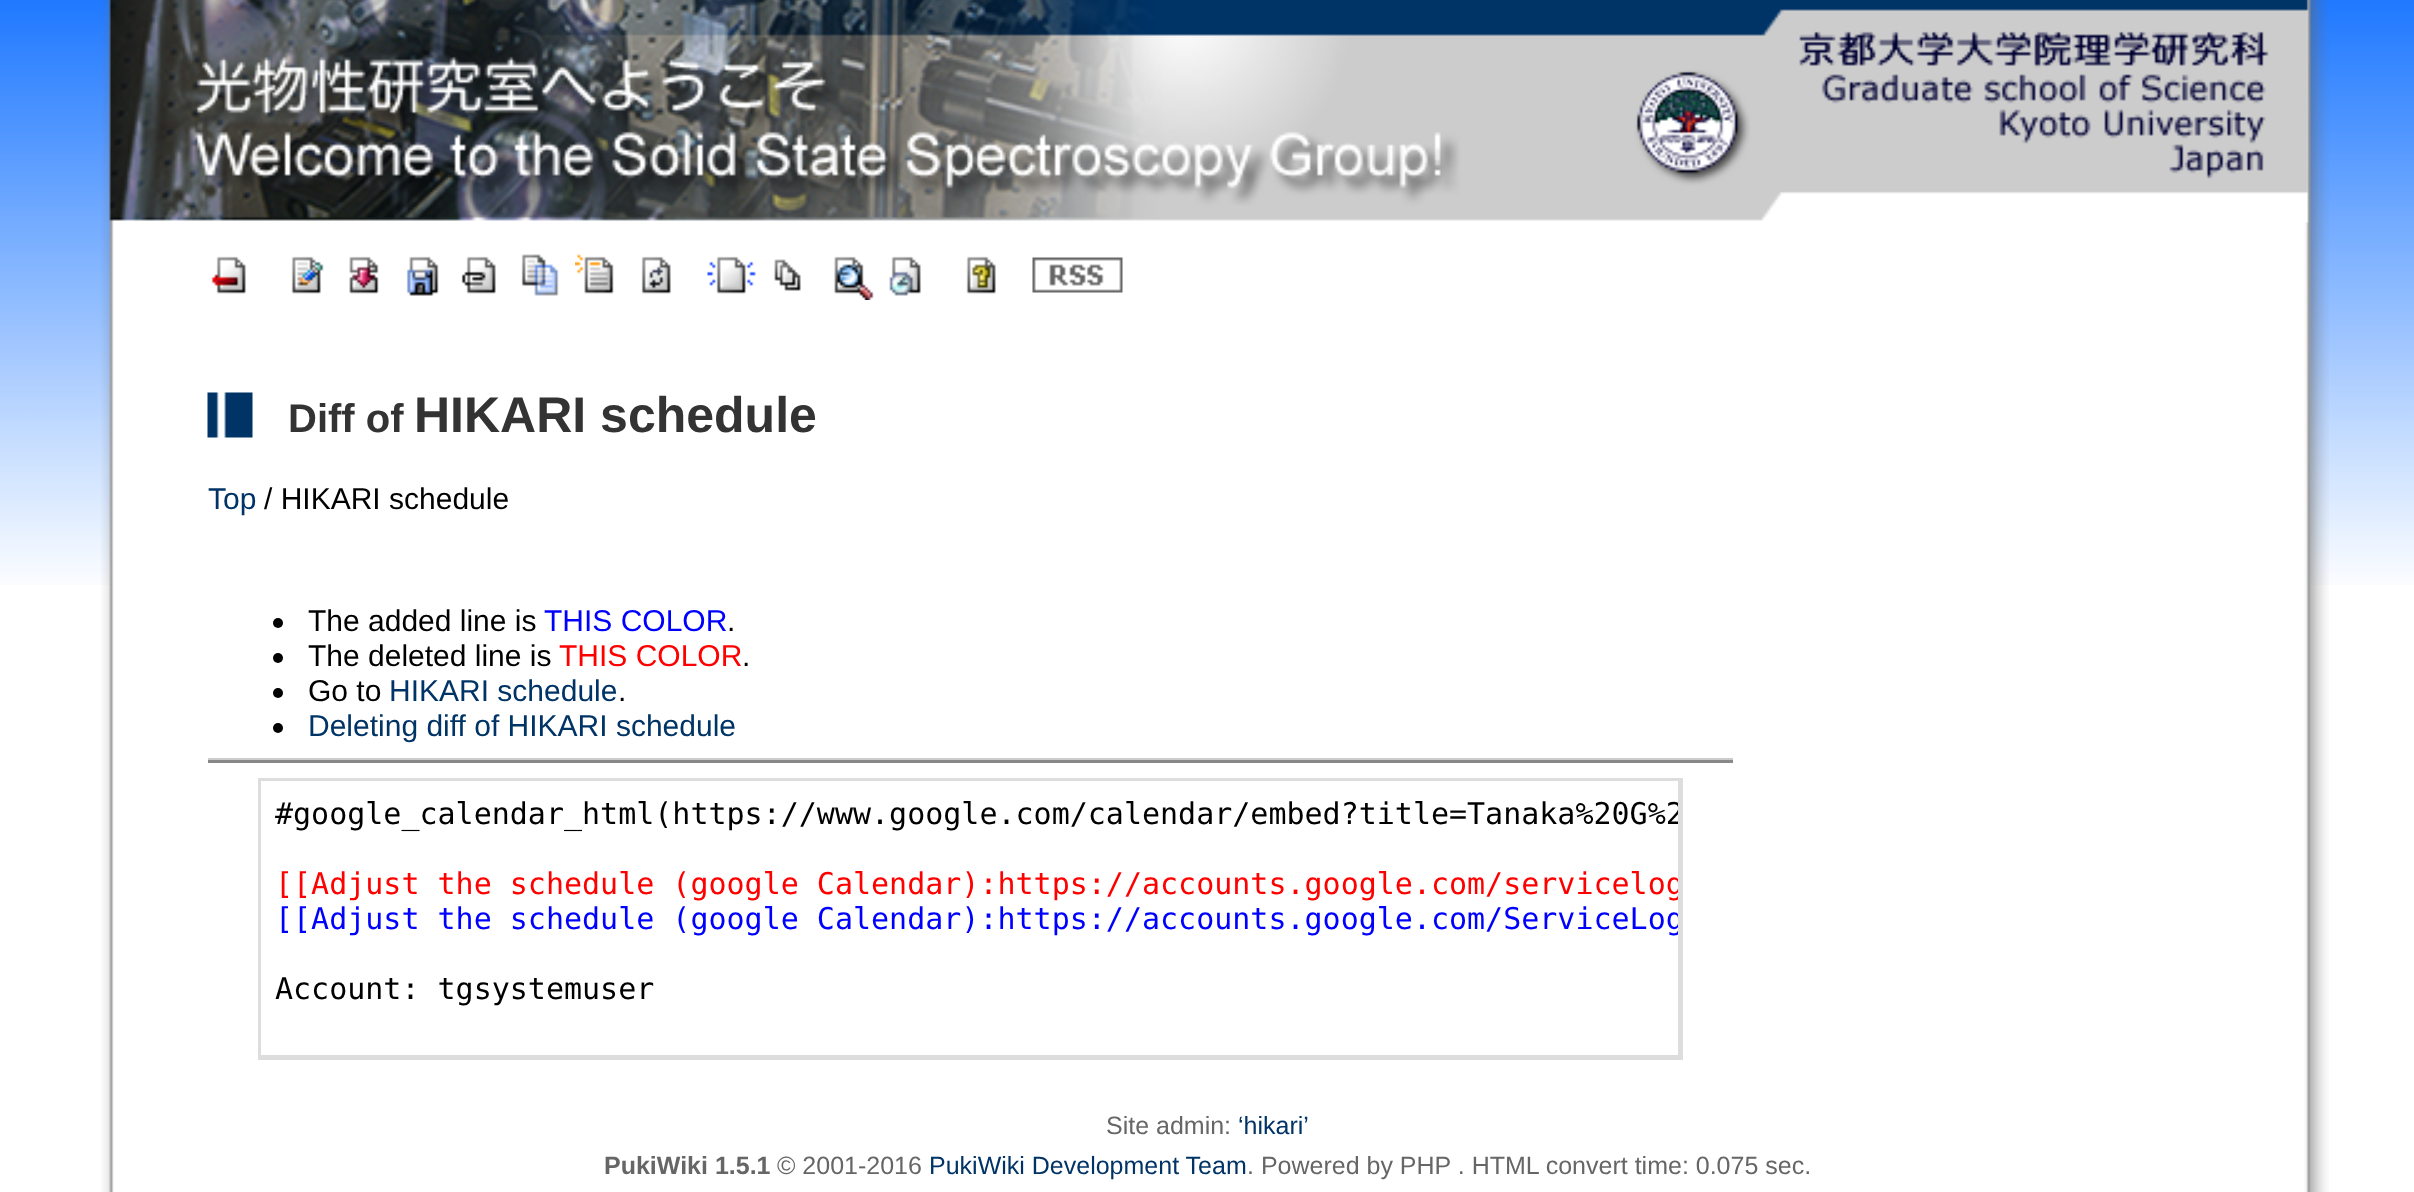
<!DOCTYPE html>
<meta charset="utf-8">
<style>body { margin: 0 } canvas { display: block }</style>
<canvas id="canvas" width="2414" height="1192"></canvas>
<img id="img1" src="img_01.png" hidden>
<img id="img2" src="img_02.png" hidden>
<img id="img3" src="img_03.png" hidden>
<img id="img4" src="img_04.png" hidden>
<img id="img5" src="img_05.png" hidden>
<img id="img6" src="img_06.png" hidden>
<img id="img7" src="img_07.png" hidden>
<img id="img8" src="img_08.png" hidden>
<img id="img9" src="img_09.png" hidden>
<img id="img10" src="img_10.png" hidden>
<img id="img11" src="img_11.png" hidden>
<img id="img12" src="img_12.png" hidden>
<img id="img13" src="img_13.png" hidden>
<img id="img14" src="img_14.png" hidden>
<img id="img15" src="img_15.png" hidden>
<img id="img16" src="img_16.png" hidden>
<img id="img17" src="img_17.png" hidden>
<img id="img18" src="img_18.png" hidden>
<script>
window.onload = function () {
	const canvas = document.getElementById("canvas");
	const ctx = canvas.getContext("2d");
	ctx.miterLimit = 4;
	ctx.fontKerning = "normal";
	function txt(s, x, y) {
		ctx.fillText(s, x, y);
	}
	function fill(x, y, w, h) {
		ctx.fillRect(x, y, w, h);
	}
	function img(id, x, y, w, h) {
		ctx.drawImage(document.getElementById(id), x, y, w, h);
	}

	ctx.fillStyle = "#FFFFFF";
	fill(0, 0, 2414, 1192);
	img("img1", 0, 0, 2414, 585);
	img("img2", 101, 0, 2228, 1192);
	img("img3", 109, 0, 2200, 223);
	img("img4", 211, 256, 35, 38);
	img("img5", 291, 256, 33, 38);
	img("img6", 349, 256, 30, 38);
	img("img7", 406, 256, 33, 40);
	img("img8", 461, 256, 35, 38);
	img("img9", 521, 254, 38, 42);
	img("img10", 575, 254, 39, 40);
	img("img11", 641, 256, 30, 38);
	img("img12", 707, 256, 49, 38);
	img("img13", 774, 259, 27, 32);
	img("img14", 834, 256, 40, 44);
	img("img15", 889, 256, 32, 40);
	img("img16", 966, 256, 30, 38);
	img("img17", 1032, 257, 91, 36);
	img("img18", 207, 392, 46, 46);
	ctx.fillStyle = "#000000";
	ctx.beginPath();
	ctx.arc(278, 623, 5, 0, Math.PI * 2);
	ctx.fill();
	ctx.beginPath();
	ctx.arc(278, 658, 5, 0, Math.PI * 2);
	ctx.fill();
	ctx.beginPath();
	ctx.arc(278, 693, 5, 0, Math.PI * 2);
	ctx.fill();
	ctx.beginPath();
	ctx.arc(278, 728, 5, 0, Math.PI * 2);
	ctx.fill();
	ctx.fillStyle = "#CCCCCC";
	fill(208, 758, 1525, 2);
	ctx.fillStyle = "#888888";
	fill(208, 760, 1525, 3);
	ctx.fillStyle = "#DDDDDD";
	fill(258, 778, 1425, 3);
	fill(1678, 778, 5, 282);
	fill(258, 1055, 1425, 5);
	fill(258, 778, 3, 282);
	ctx.font = "bold 40px Liberation Sans";
	ctx.fillStyle = "#333333";
	txt("Diff of", 288, 432);
	ctx.font = "bold 50px Liberation Sans";
	txt("HIKARI schedule", 414, 432);
	ctx.font = "30px Liberation Sans";
	ctx.fillStyle = "#003366";
	txt("Top", 208, 509);
	ctx.fillStyle = "#000000";
	txt("/ HIKARI schedule", 264, 509);
	txt("The added line is", 308, 631);
	ctx.fillStyle = "#0000FF";
	txt("THIS COLOR", 544, 631);
	ctx.fillStyle = "#000000";
	txt(".", 727, 631);
	txt("The deleted line is", 308, 666);
	ctx.fillStyle = "#FF0000";
	txt("THIS COLOR", 559, 666);
	ctx.fillStyle = "#000000";
	txt(".", 742, 666);
	txt("Go to", 308, 701);
	ctx.fillStyle = "#003366";
	txt("HIKARI schedule", 389, 701);
	ctx.fillStyle = "#000000";
	txt(".", 618, 701);
	ctx.fillStyle = "#003366";
	txt("Deleting diff of HIKARI schedule", 308, 736);
	ctx.save();
	ctx.beginPath();
	ctx.rect(260, 780, 1418, 275);
	ctx.clip();
	ctx.font = "30px DejaVu Sans Mono";
	ctx.fillStyle = "#000000";
	txt("#google_calendar_html(https://www.google.com/calendar/embed?title=Tanaka%20G%2", 275, 824);
	ctx.fillStyle = "#FF0000";
	txt("[[Adjust the schedule (google Calendar):https://accounts.google.com/servicelog", 275, 894);
	ctx.fillStyle = "#0000FF";
	txt("[[Adjust the schedule (google Calendar):https://accounts.google.com/ServiceLog", 275, 929);
	ctx.restore();
	ctx.font = "30px DejaVu Sans Mono";
	ctx.fillStyle = "#000000";
	txt("Account: tgsystemuser", 275, 999);
	ctx.font = "25px Liberation Sans";
	ctx.fillStyle = "#666666";
	txt("Site admin:", 1106, 1134);
	ctx.fillStyle = "#003366";
	txt("‘hikari’", 1238, 1134);
	ctx.font = "bold 25px Liberation Sans";
	ctx.fillStyle = "#666666";
	txt("PukiWiki 1.5.1", 604, 1174);
	ctx.font = "25px Liberation Sans";
	txt("© 2001-2016", 777, 1174);
	ctx.fillStyle = "#003366";
	txt("PukiWiki Development Team", 929, 1174);
	ctx.fillStyle = "#666666";
	txt(". Powered by PHP . HTML convert time: 0.075 sec.", 1247, 1174);
};
</script>
